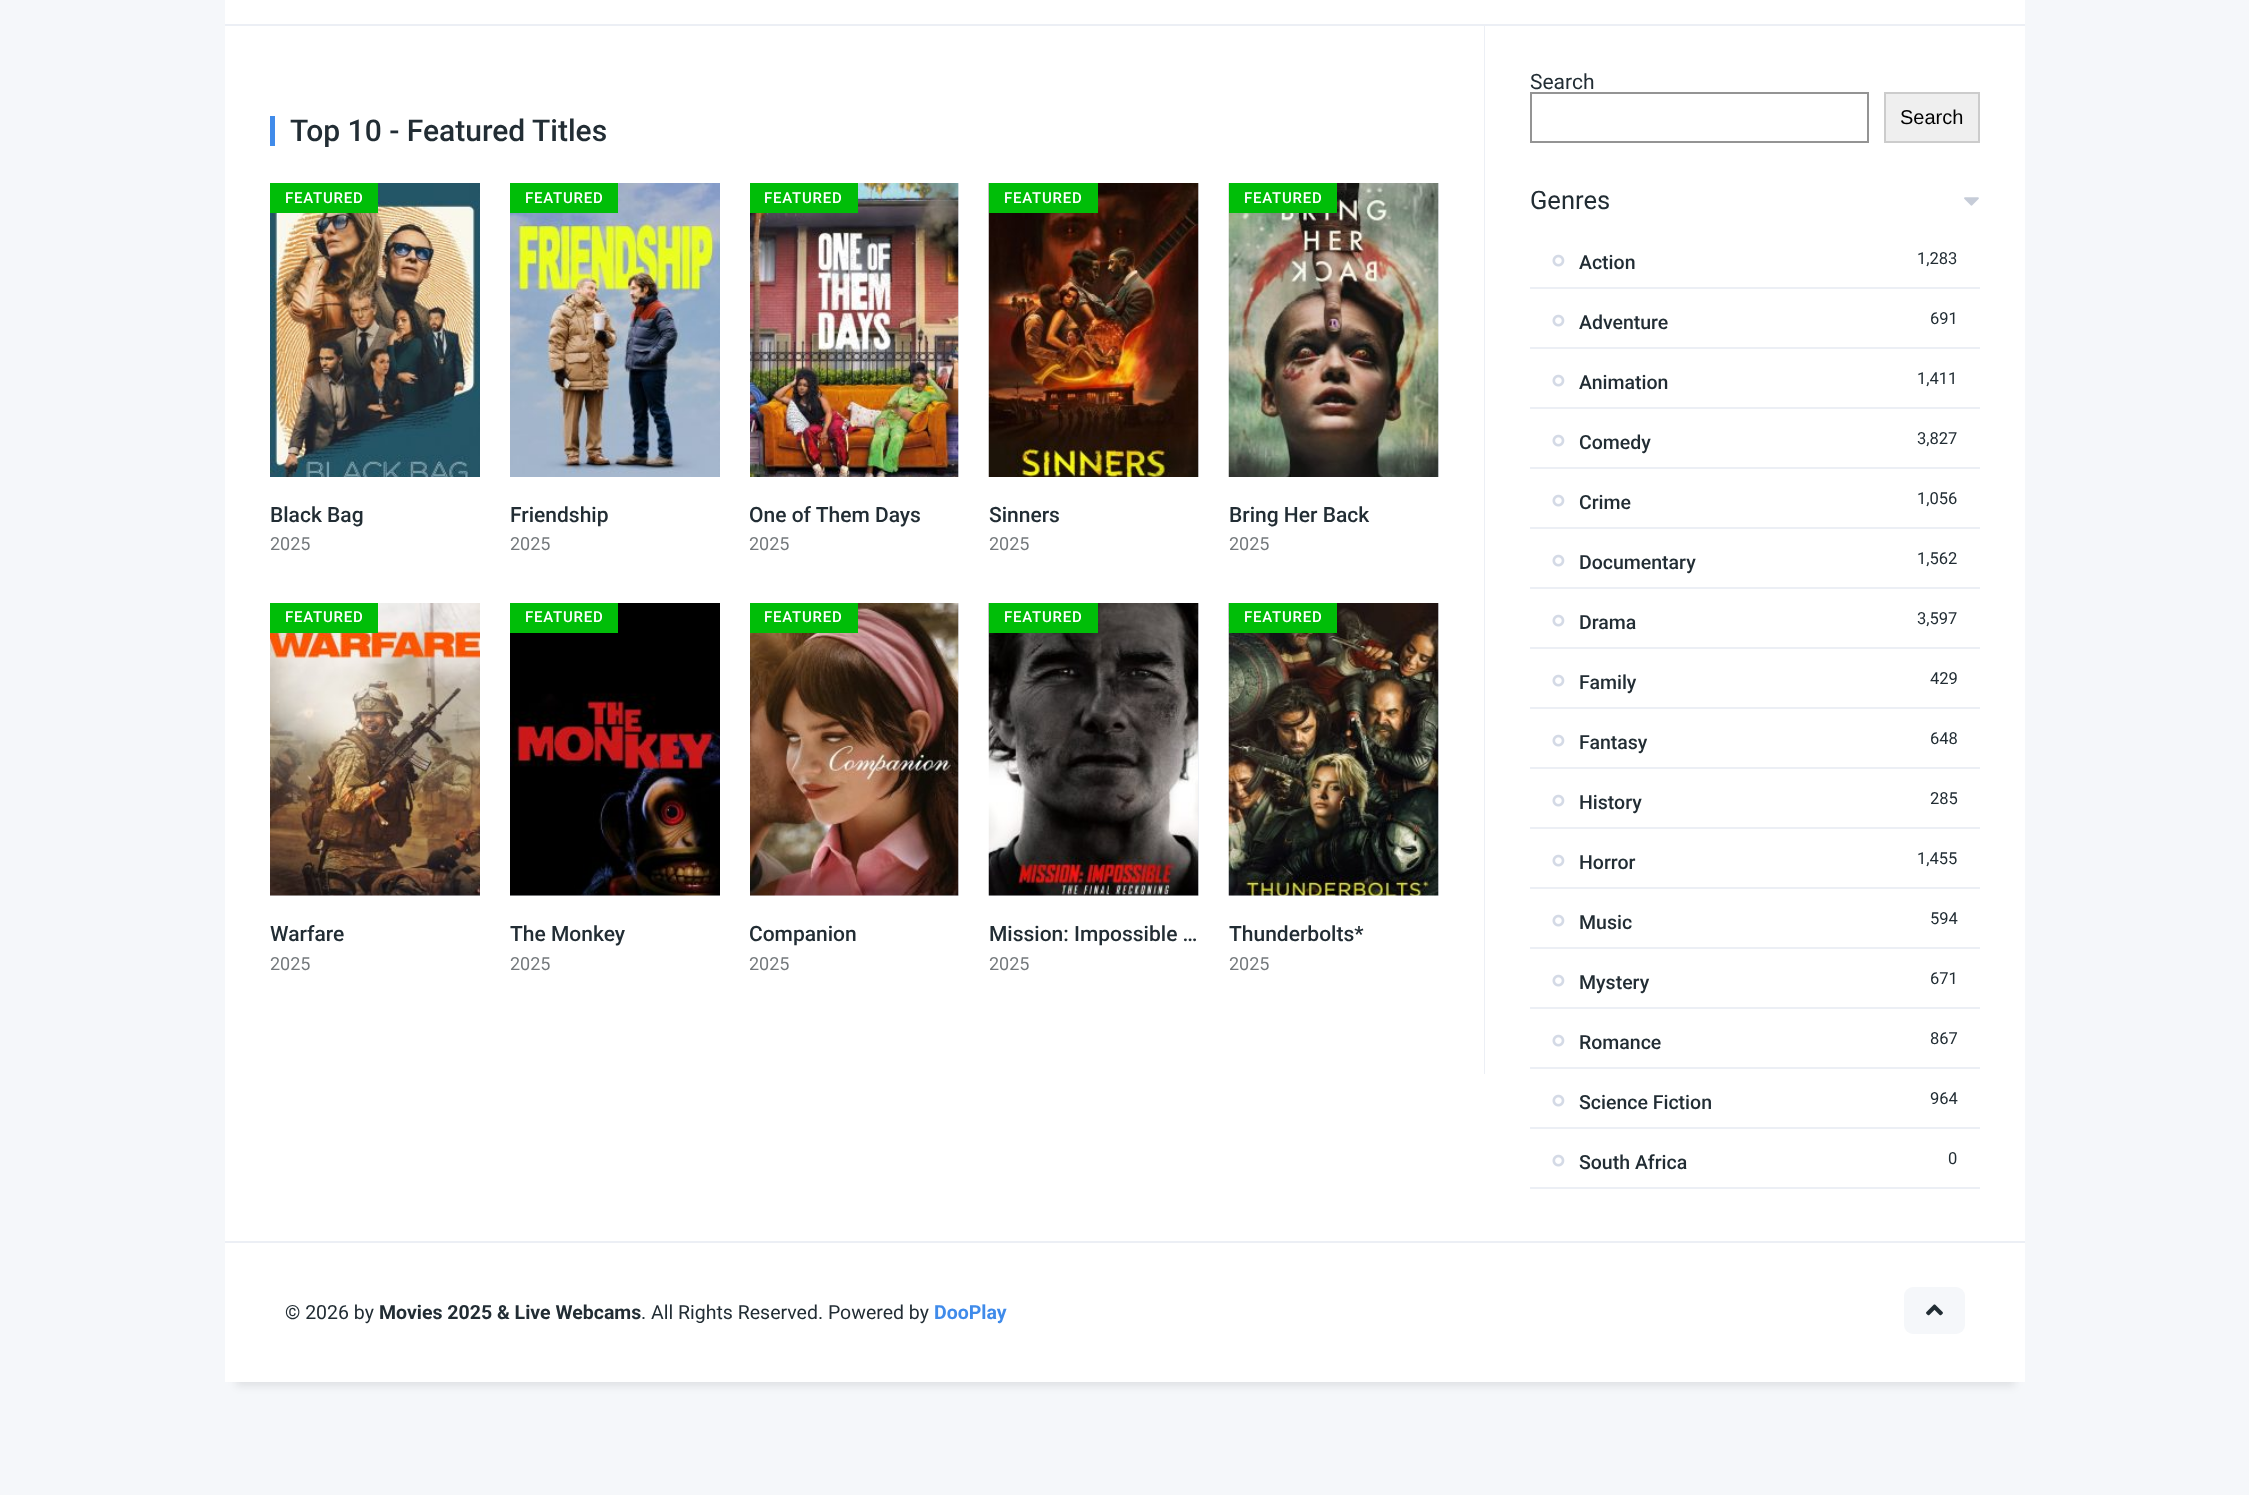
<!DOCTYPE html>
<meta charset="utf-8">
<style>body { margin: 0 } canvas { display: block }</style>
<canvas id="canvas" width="2249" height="1495"></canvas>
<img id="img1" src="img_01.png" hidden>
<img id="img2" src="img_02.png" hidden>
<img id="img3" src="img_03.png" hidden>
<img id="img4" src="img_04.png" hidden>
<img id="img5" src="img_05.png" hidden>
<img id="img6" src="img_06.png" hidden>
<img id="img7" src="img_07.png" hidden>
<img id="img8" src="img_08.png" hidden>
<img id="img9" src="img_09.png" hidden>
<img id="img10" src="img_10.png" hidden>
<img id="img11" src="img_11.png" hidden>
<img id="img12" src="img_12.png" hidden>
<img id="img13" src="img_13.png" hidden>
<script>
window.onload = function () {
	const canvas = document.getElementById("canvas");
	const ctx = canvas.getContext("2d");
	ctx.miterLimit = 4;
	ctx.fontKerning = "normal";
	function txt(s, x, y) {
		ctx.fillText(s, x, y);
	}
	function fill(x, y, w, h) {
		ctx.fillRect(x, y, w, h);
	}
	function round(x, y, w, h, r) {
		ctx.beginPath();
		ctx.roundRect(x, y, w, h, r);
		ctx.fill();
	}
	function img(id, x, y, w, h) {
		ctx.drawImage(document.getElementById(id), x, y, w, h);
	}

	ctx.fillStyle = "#F5F7FA";
	fill(0, 0, 2249, 1495);
	ctx.fillStyle = "#FFFFFF";
	fill(225, 0, 1800, 24);
	fill(225, 26, 1800, 1215);
	ctx.fillStyle = "#ECEFF5";
	fill(225, 24, 1800, 2);
	fill(225, 1241, 1800, 2);
	fill(1484, 26, 1, 1048);
	ctx.fillStyle = "#408BEA";
	fill(270, 116, 5, 30);
	img("img1", 270, 183, 210, 294);
	ctx.fillStyle = "#00BE08";
	fill(270, 183, 108, 30);
	img("img2", 510, 183, 210, 294);
	fill(510, 183, 108, 30);
	ctx.fillStyle = "#ECEFF5";
	fill(958, 183, 1, 294);
	img("img3", 750, 183, 209, 294);
	ctx.fillStyle = "#00BE08";
	fill(750, 183, 108, 30);
	ctx.fillStyle = "#ECEFF5";
	fill(1198, 183, 1, 294);
	img("img4", 988, 183, 211, 294);
	ctx.fillStyle = "#00BE08";
	fill(989, 183, 109, 30);
	ctx.fillStyle = "#ECEFF5";
	fill(1438, 183, 1, 294);
	img("img5", 1228, 183, 211, 294);
	ctx.fillStyle = "#00BE08";
	fill(1229, 183, 108, 30);
	ctx.fillStyle = "#ECEFF5";
	fill(270, 895, 210, 1);
	img("img6", 270, 603, 210, 293);
	ctx.fillStyle = "#00BE08";
	fill(270, 603, 108, 30);
	ctx.fillStyle = "#ECEFF5";
	fill(510, 895, 210, 1);
	img("img7", 510, 603, 210, 293);
	ctx.fillStyle = "#00BE08";
	fill(510, 603, 108, 30);
	ctx.fillStyle = "#ECEFF5";
	fill(750, 603, 209, 293);
	img("img8", 750, 603, 209, 293);
	ctx.fillStyle = "#00BE08";
	fill(750, 603, 108, 30);
	ctx.fillStyle = "#ECEFF5";
	fill(989, 603, 210, 293);
	img("img9", 988, 603, 211, 293);
	ctx.fillStyle = "#00BE08";
	fill(989, 603, 109, 30);
	ctx.fillStyle = "#ECEFF5";
	fill(1229, 603, 210, 293);
	img("img10", 1228, 603, 211, 293);
	ctx.fillStyle = "#00BE08";
	fill(1229, 603, 108, 30);
	ctx.strokeStyle = "#949494";
	ctx.lineWidth = 2;
	ctx.strokeRect(1531, 93, 337, 49);
	ctx.fillStyle = "#EFEFEF";
	ctx.beginPath();
	ctx.rect(1885, 93, 94, 49);
	ctx.fill();
	ctx.strokeStyle = "#CCCCCC";
	ctx.stroke();
	img("img11", 1964, 197, 15, 9);
	ctx.fillStyle = "#ECEFF5";
	fill(1530, 287, 450, 2);
	img("img12", 1552, 254, 13, 13);
	fill(1530, 347, 450, 2);
	img("img12", 1552, 314, 13, 13);
	fill(1530, 407, 450, 2);
	img("img12", 1552, 374, 13, 13);
	fill(1530, 467, 450, 2);
	img("img12", 1552, 434, 13, 13);
	fill(1530, 527, 450, 2);
	img("img12", 1552, 494, 13, 13);
	fill(1530, 587, 450, 2);
	img("img12", 1552, 554, 13, 13);
	fill(1530, 647, 450, 2);
	img("img12", 1552, 614, 13, 13);
	fill(1530, 707, 450, 2);
	img("img12", 1552, 674, 13, 13);
	fill(1530, 767, 450, 2);
	img("img12", 1552, 734, 13, 13);
	fill(1530, 827, 450, 2);
	img("img12", 1552, 794, 13, 13);
	fill(1530, 887, 450, 2);
	img("img12", 1552, 854, 13, 13);
	fill(1530, 947, 450, 2);
	img("img12", 1552, 914, 13, 13);
	fill(1530, 1007, 450, 2);
	img("img12", 1552, 974, 13, 13);
	fill(1530, 1067, 450, 2);
	img("img12", 1552, 1034, 13, 13);
	fill(1530, 1127, 450, 2);
	img("img12", 1552, 1094, 13, 13);
	fill(1530, 1187, 450, 2);
	img("img12", 1552, 1154, 13, 13);
	ctx.fillStyle = "rgba(0, 0, 0, 0.09)";
	ctx.filter = "blur(4px)";
	ctx.beginPath();
	ctx.rect(236, 1268, 1779, 118);
	ctx.fill();
	ctx.filter = "none";
	ctx.fillStyle = "#FFFFFF";
	fill(225, 1243, 1800, 139);
	ctx.fillStyle = "#F5F7FA";
	round(1904, 1287, 61, 47, 9);
	img("img13", 1926, 1304, 17, 12);
	ctx.font = "500 30px Roboto";
	ctx.fillStyle = "#222D34";
	txt("Top 10 - Featured Titles", 290, 141);
	ctx.letterSpacing = "0.75px";
	ctx.font = "500 15px Roboto";
	ctx.fillStyle = "#FFFFFF";
	txt("FEATURED", 285, 203);
	ctx.letterSpacing = "0px";
	ctx.font = "500 21px Roboto";
	ctx.fillStyle = "#222D34";
	txt("Black Bag", 270, 522);
	ctx.font = "18px Roboto";
	ctx.fillStyle = "#757A7D";
	txt("2025", 270, 550);
	ctx.letterSpacing = "0.75px";
	ctx.font = "500 15px Roboto";
	ctx.fillStyle = "#FFFFFF";
	txt("FEATURED", 525, 203);
	ctx.letterSpacing = "0px";
	ctx.font = "500 21px Roboto";
	ctx.fillStyle = "#222D34";
	txt("Friendship", 510, 522);
	ctx.font = "18px Roboto";
	ctx.fillStyle = "#757A7D";
	txt("2025", 510, 550);
	ctx.letterSpacing = "0.75px";
	ctx.font = "500 15px Roboto";
	ctx.fillStyle = "#FFFFFF";
	txt("FEATURED", 764, 203);
	ctx.letterSpacing = "0px";
	ctx.font = "500 21px Roboto";
	ctx.fillStyle = "#222D34";
	txt("One of Them Days", 749, 522);
	ctx.font = "18px Roboto";
	ctx.fillStyle = "#757A7D";
	txt("2025", 749, 550);
	ctx.letterSpacing = "0.75px";
	ctx.font = "500 15px Roboto";
	ctx.fillStyle = "#FFFFFF";
	txt("FEATURED", 1004, 203);
	ctx.letterSpacing = "0px";
	ctx.font = "500 21px Roboto";
	ctx.fillStyle = "#222D34";
	txt("Sinners", 989, 522);
	ctx.font = "18px Roboto";
	ctx.fillStyle = "#757A7D";
	txt("2025", 989, 550);
	ctx.letterSpacing = "0.75px";
	ctx.font = "500 15px Roboto";
	ctx.fillStyle = "#FFFFFF";
	txt("FEATURED", 1244, 203);
	ctx.letterSpacing = "0px";
	ctx.font = "500 21px Roboto";
	ctx.fillStyle = "#222D34";
	txt("Bring Her Back", 1229, 522);
	ctx.font = "18px Roboto";
	ctx.fillStyle = "#757A7D";
	txt("2025", 1229, 550);
	ctx.letterSpacing = "0.75px";
	ctx.font = "500 15px Roboto";
	ctx.fillStyle = "#FFFFFF";
	txt("FEATURED", 285, 622);
	ctx.letterSpacing = "0px";
	ctx.font = "500 21px Roboto";
	ctx.fillStyle = "#222D34";
	txt("Warfare", 270, 941);
	ctx.font = "18px Roboto";
	ctx.fillStyle = "#757A7D";
	txt("2025", 270, 970);
	ctx.letterSpacing = "0.75px";
	ctx.font = "500 15px Roboto";
	ctx.fillStyle = "#FFFFFF";
	txt("FEATURED", 525, 622);
	ctx.letterSpacing = "0px";
	ctx.font = "500 21px Roboto";
	ctx.fillStyle = "#222D34";
	txt("The Monkey", 510, 941);
	ctx.font = "18px Roboto";
	ctx.fillStyle = "#757A7D";
	txt("2025", 510, 970);
	ctx.letterSpacing = "0.75px";
	ctx.font = "500 15px Roboto";
	ctx.fillStyle = "#FFFFFF";
	txt("FEATURED", 764, 622);
	ctx.letterSpacing = "0px";
	ctx.font = "500 21px Roboto";
	ctx.fillStyle = "#222D34";
	txt("Companion", 749, 941);
	ctx.font = "18px Roboto";
	ctx.fillStyle = "#757A7D";
	txt("2025", 749, 970);
	ctx.letterSpacing = "0.75px";
	ctx.font = "500 15px Roboto";
	ctx.fillStyle = "#FFFFFF";
	txt("FEATURED", 1004, 622);
	ctx.letterSpacing = "0px";
	ctx.font = "500 21px Roboto";
	ctx.fillStyle = "#222D34";
	txt("Mission: Impossible …", 989, 941);
	ctx.font = "18px Roboto";
	ctx.fillStyle = "#757A7D";
	txt("2025", 989, 970);
	ctx.letterSpacing = "0.75px";
	ctx.font = "500 15px Roboto";
	ctx.fillStyle = "#FFFFFF";
	txt("FEATURED", 1244, 622);
	ctx.letterSpacing = "0px";
	ctx.font = "500 21px Roboto";
	ctx.fillStyle = "#222D34";
	txt("Thunderbolts*", 1229, 941);
	ctx.font = "18px Roboto";
	ctx.fillStyle = "#757A7D";
	txt("2025", 1229, 970);
	ctx.font = "21px Roboto";
	ctx.fillStyle = "#222D34";
	txt("Search", 1530, 89);
	ctx.font = "20px Liberation Sans";
	ctx.fillStyle = "#000000";
	txt("Search", 1900, 124);
	ctx.font = "25.5px Roboto";
	ctx.fillStyle = "#222D34";
	txt("Genres", 1530, 209);
	ctx.font = "500 19.5px Roboto";
	txt("Action", 1579, 269);
	ctx.font = "16.5px Roboto";
	txt("1,283", 1917, 264);
	ctx.font = "500 19.5px Roboto";
	txt("Adventure", 1579, 329);
	ctx.font = "16.5px Roboto";
	txt("691", 1930, 324);
	ctx.font = "500 19.5px Roboto";
	txt("Animation", 1579, 389);
	ctx.font = "16.5px Roboto";
	txt("1,411", 1917, 384);
	ctx.font = "500 19.5px Roboto";
	txt("Comedy", 1579, 449);
	ctx.font = "16.5px Roboto";
	txt("3,827", 1917, 444);
	ctx.font = "500 19.5px Roboto";
	txt("Crime", 1579, 509);
	ctx.font = "16.5px Roboto";
	txt("1,056", 1917, 504);
	ctx.font = "500 19.5px Roboto";
	txt("Documentary", 1579, 569);
	ctx.font = "16.5px Roboto";
	txt("1,562", 1917, 564);
	ctx.font = "500 19.5px Roboto";
	txt("Drama", 1579, 629);
	ctx.font = "16.5px Roboto";
	txt("3,597", 1917, 624);
	ctx.font = "500 19.5px Roboto";
	txt("Family", 1579, 689);
	ctx.font = "16.5px Roboto";
	txt("429", 1930, 684);
	ctx.font = "500 19.5px Roboto";
	txt("Fantasy", 1579, 749);
	ctx.font = "16.5px Roboto";
	txt("648", 1930, 744);
	ctx.font = "500 19.5px Roboto";
	txt("History", 1579, 809);
	ctx.font = "16.5px Roboto";
	txt("285", 1930, 804);
	ctx.font = "500 19.5px Roboto";
	txt("Horror", 1579, 869);
	ctx.font = "16.5px Roboto";
	txt("1,455", 1917, 864);
	ctx.font = "500 19.5px Roboto";
	txt("Music", 1579, 929);
	ctx.font = "16.5px Roboto";
	txt("594", 1930, 924);
	ctx.font = "500 19.5px Roboto";
	txt("Mystery", 1579, 989);
	ctx.font = "16.5px Roboto";
	txt("671", 1930, 984);
	ctx.font = "500 19.5px Roboto";
	txt("Romance", 1579, 1049);
	ctx.font = "16.5px Roboto";
	txt("867", 1930, 1044);
	ctx.font = "500 19.5px Roboto";
	txt("Science Fiction", 1579, 1109);
	ctx.font = "16.5px Roboto";
	txt("964", 1930, 1104);
	ctx.font = "500 19.5px Roboto";
	txt("South Africa", 1579, 1169);
	ctx.font = "16.5px Roboto";
	txt("0", 1948, 1164);
	ctx.font = "19.5px Roboto";
	txt("© 2026 by", 285, 1319);
	ctx.font = "bold 19.5px Roboto";
	txt("Movies 2025 & Live Webcams", 379, 1319);
	ctx.font = "19.5px Roboto";
	txt(". All Rights Reserved. Powered by", 641, 1319);
	ctx.font = "bold 19.5px Roboto";
	ctx.fillStyle = "#408BEA";
	txt("DooPlay", 934, 1319);
};
</script>
